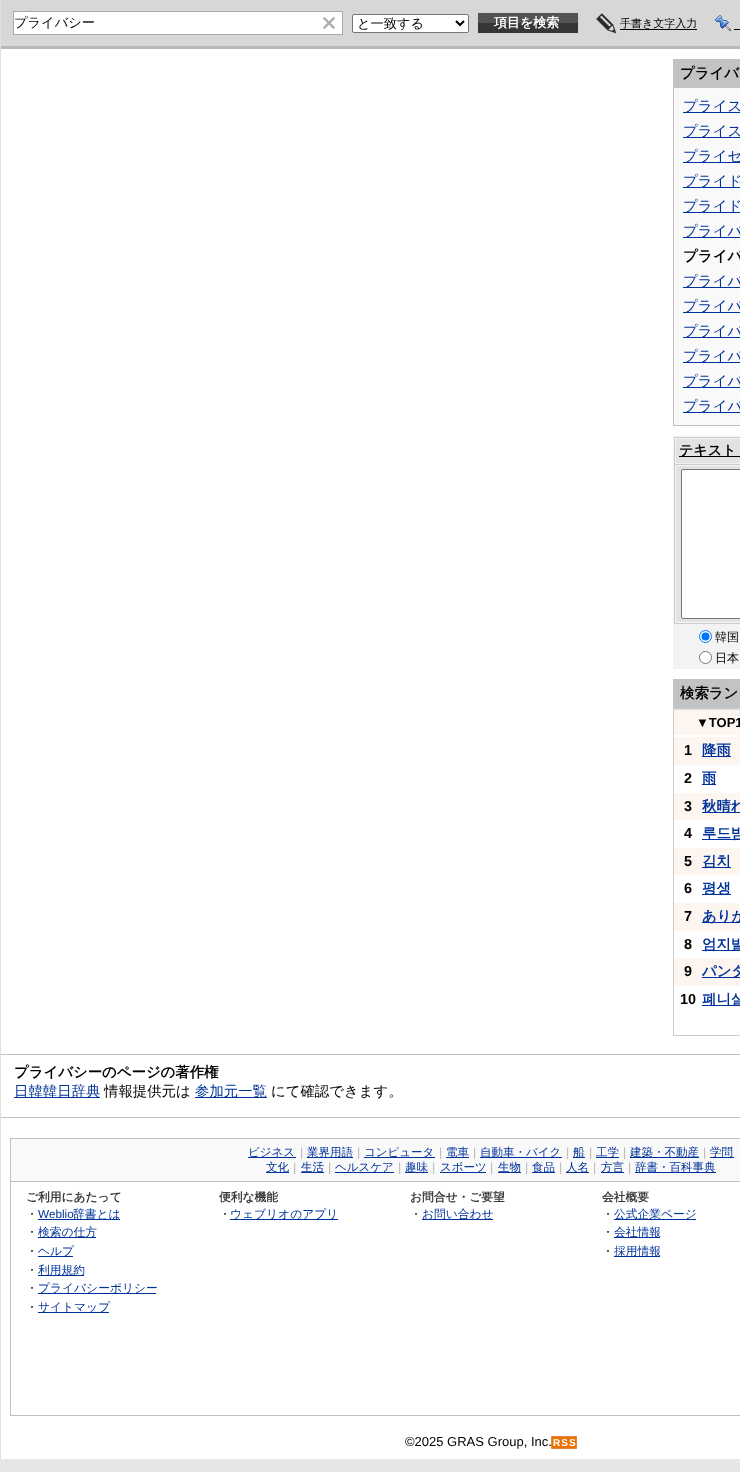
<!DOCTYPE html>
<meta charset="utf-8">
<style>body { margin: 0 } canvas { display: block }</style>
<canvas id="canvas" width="740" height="1472"></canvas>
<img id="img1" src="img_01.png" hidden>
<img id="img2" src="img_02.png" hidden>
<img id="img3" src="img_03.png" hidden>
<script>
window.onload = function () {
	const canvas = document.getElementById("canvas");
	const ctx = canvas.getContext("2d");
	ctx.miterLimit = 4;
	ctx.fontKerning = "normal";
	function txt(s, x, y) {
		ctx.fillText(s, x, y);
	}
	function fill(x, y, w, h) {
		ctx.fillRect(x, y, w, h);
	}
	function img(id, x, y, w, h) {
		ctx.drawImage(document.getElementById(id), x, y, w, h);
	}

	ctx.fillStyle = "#E6E6E6";
	fill(0, 0, 740, 1472);
	ctx.fillStyle = "#FFFFFF";
	fill(1, 49, 739, 1410);
	ctx.fillStyle = "#E0E0E0";
	fill(0, 0, 1, 1459);
	ctx.fillStyle = "#D7D7D7";
	fill(1, 0, 739, 46);
	ctx.fillStyle = "#B8B8B8";
	fill(1, 46, 739, 3);
	ctx.fillStyle = "#FFFFFF";
	fill(14, 12, 328, 22);
	ctx.fillStyle = "#A9A9A9";
	fill(13, 11, 330, 1);
	fill(342, 11, 1, 24);
	fill(13, 34, 330, 1);
	fill(13, 11, 1, 24);
	img("img1", 323, 17, 12, 12);
	ctx.fillStyle = "#FFFFFF";
	ctx.beginPath();
	ctx.roundRect(352.5, 14.5, 116, 18, 1.5);
	ctx.fill();
	ctx.strokeStyle = "#767676";
	ctx.stroke();
	ctx.beginPath();
	ctx.moveTo(456, 21);
	ctx.lineTo(460, 25);
	ctx.lineTo(464, 21);
	ctx.strokeStyle = "#000000";
	ctx.lineWidth = 2;
	ctx.stroke();
	ctx.strokeStyle = "#D4D4D4";
	ctx.lineWidth = 1;
	ctx.strokeRect(477.5, 12.5, 101, 21);
	ctx.fillStyle = "#535353";
	fill(478, 13, 100, 10);
	ctx.fillStyle = "#363636";
	fill(478, 23, 100, 10);
	img("img2", 596, 13, 21, 21);
	ctx.fillStyle = "#000000";
	fill(620, 29, 77, 1);
	img("img3", 715, 15, 16, 16);
	fill(734, 29, 6, 1);
	ctx.fillStyle = "#C3C3C3";
	fill(673, 59, 67, 29);
	ctx.fillStyle = "#F9F9F9";
	fill(674, 88, 66, 337);
	ctx.fillStyle = "#C0C0C0";
	fill(673, 425, 67, 1);
	fill(673, 88, 1, 338);
	ctx.fillStyle = "#00329B";
	fill(683, 112, 57, 1);
	fill(683, 137, 57, 1);
	fill(683, 162, 57, 1);
	fill(683, 187, 57, 1);
	fill(683, 212, 57, 1);
	fill(683, 237, 57, 1);
	fill(683, 287, 57, 1);
	fill(683, 312, 57, 1);
	fill(683, 337, 57, 1);
	fill(683, 362, 57, 1);
	fill(683, 387, 57, 1);
	fill(683, 412, 57, 1);
	ctx.fillStyle = "#F3F3F3";
	fill(673, 436, 67, 233);
	ctx.strokeStyle = "#CCCCCC";
	ctx.strokeRect(674.5, 437.5, 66, 27);
	ctx.fillStyle = "#E2E2E2";
	fill(676, 439, 64, 24);
	ctx.fillStyle = "#000000";
	fill(679, 456, 61, 1);
	ctx.fillStyle = "#CCCCCC";
	fill(674, 623, 66, 1);
	fill(674, 465, 1, 159);
	ctx.fillStyle = "#E2E2E2";
	fill(676, 466, 64, 156);
	ctx.fillStyle = "#FFFFFF";
	ctx.beginPath();
	ctx.roundRect(681.5, 469.5, 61, 149, 1.5);
	ctx.fill();
	ctx.strokeStyle = "#767676";
	ctx.stroke();
	ctx.beginPath();
	ctx.arc(705.5, 636.5, 6, 0, Math.PI * 2);
	ctx.fill();
	ctx.strokeStyle = "#0075FF";
	ctx.stroke();
	ctx.fillStyle = "#0075FF";
	ctx.beginPath();
	ctx.arc(705.5, 636.5, 4, 0, Math.PI * 2);
	ctx.fill();
	ctx.fillStyle = "#FFFFFF";
	ctx.beginPath();
	ctx.arc(705.5, 657.5, 6, 0, Math.PI * 2);
	ctx.fill();
	ctx.strokeStyle = "#767676";
	ctx.stroke();
	ctx.fillStyle = "#C3C3C3";
	fill(673, 679, 67, 29);
	ctx.strokeStyle = "#CCCCCC";
	ctx.strokeRect(673.5, 708.5, 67, 327);
	ctx.fillStyle = "#FDF5F0";
	fill(674, 710, 66, 25);
	ctx.fillStyle = "#DDDDDD";
	fill(674, 709, 66, 1);
	ctx.fillStyle = "#FDF5F0";
	fill(674, 737, 66, 28);
	ctx.fillStyle = "#00329B";
	fill(702, 756, 29, 1);
	fill(702, 784, 14, 1);
	ctx.fillStyle = "#FDF5F0";
	fill(674, 793, 66, 27);
	ctx.fillStyle = "#00329B";
	fill(702, 812, 38, 1);
	fill(702, 839, 38, 1);
	ctx.fillStyle = "#FDF5F0";
	fill(674, 848, 66, 27);
	ctx.fillStyle = "#00329B";
	fill(702, 867, 29, 1);
	fill(702, 894, 29, 1);
	ctx.fillStyle = "#FDF5F0";
	fill(674, 903, 66, 28);
	ctx.fillStyle = "#00329B";
	fill(702, 922, 38, 1);
	fill(702, 950, 38, 1);
	ctx.fillStyle = "#FDF5F0";
	fill(674, 958, 66, 28);
	ctx.fillStyle = "#00329B";
	fill(702, 977, 38, 1);
	fill(702, 1005, 38, 1);
	ctx.fillStyle = "#C0C0C0";
	fill(1, 1054, 739, 1);
	ctx.fillStyle = "#00329B";
	fill(14, 1097, 86, 1);
	fill(195, 1097, 72, 1);
	ctx.fillStyle = "#C0C0C0";
	fill(1, 1117, 739, 1);
	ctx.strokeStyle = "#C0C0C0";
	ctx.strokeRect(10.5, 1138.5, 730, 277);
	ctx.fillStyle = "#F9F9F9";
	fill(11, 1139, 729, 42);
	ctx.fillStyle = "#C0C0C0";
	fill(11, 1181, 729, 1);
	ctx.fillStyle = "#00329B";
	fill(248, 1157, 48, 1);
	fill(307, 1157, 46, 1);
	fill(364, 1157, 71, 1);
	fill(446, 1157, 23, 1);
	fill(480, 1157, 82, 1);
	fill(573, 1157, 12, 1);
	fill(596, 1157, 23, 1);
	fill(630, 1157, 69, 1);
	fill(710, 1157, 24, 1);
	fill(266, 1172, 23, 1);
	fill(301, 1172, 23, 1);
	fill(335, 1172, 59, 1);
	fill(405, 1172, 23, 1);
	fill(440, 1172, 46, 1);
	fill(498, 1172, 23, 1);
	fill(532, 1172, 23, 1);
	fill(566, 1172, 23, 1);
	fill(601, 1172, 23, 1);
	fill(635, 1172, 81, 1);
	fill(38, 1219, 82, 1);
	fill(38, 1237, 58, 1);
	fill(38, 1256, 35, 1);
	fill(38, 1275, 46, 1);
	fill(38, 1293, 118, 1);
	fill(38, 1312, 71, 1);
	fill(230, 1219, 108, 1);
	fill(422, 1219, 71, 1);
	fill(614, 1219, 82, 1);
	fill(614, 1237, 46, 1);
	fill(614, 1256, 46, 1);
	ctx.fillStyle = "#EB7101";
	ctx.beginPath();
	ctx.rect(551.5, 1436.5, 25, 12);
	ctx.fill();
	ctx.strokeStyle = "#EA8233";
	ctx.stroke();
	ctx.font = "500 13.25px WenQuanYi Zen Hei";
	ctx.fillStyle = "#000000";
	txt("プライバシー", 14, 27);
	txt("と一致する", 357, 28);
	ctx.font = "bold 13px WenQuanYi Zen Hei";
	ctx.fillStyle = "#FFFFFF";
	txt("項目を検索", 494, 27);
	ctx.font = "500 11px WenQuanYi Zen Hei";
	ctx.fillStyle = "#000000";
	txt("手書き文字入力", 620, 27);
	ctx.font = "bold 14.4px WenQuanYi Zen Hei";
	txt("プライバ", 680, 78);
	ctx.font = "500 14.5px WenQuanYi Zen Hei";
	ctx.fillStyle = "#00329B";
	txt("プライス", 683, 111);
	txt("プライス", 683, 136);
	txt("プライセ", 683, 161);
	txt("プライド", 683, 186);
	txt("プライド", 683, 211);
	txt("プライバ", 683, 236);
	ctx.font = "bold 14.5px WenQuanYi Zen Hei";
	ctx.fillStyle = "#000000";
	txt("プライバ", 683, 261);
	ctx.font = "500 14.5px WenQuanYi Zen Hei";
	ctx.fillStyle = "#00329B";
	txt("プライバ", 683, 286);
	txt("プライバ", 683, 311);
	txt("プライバ", 683, 336);
	txt("プライバ", 683, 361);
	txt("プライバ", 683, 386);
	txt("プライバ", 683, 411);
	ctx.font = "bold 14px WenQuanYi Zen Hei";
	ctx.fillStyle = "#000000";
	txt("テキスト", 679, 455);
	ctx.font = "500 12px WenQuanYi Zen Hei";
	txt("韓国", 715, 641);
	txt("日本", 715, 662);
	ctx.font = "bold 14.4px WenQuanYi Zen Hei";
	txt("検索ラン", 680, 698);
	ctx.font = "bold 13px Liberation Sans";
	txt("▼TOP1", 696, 727);
	ctx.font = "bold 14.4px Liberation Sans";
	txt("1", 684, 755);
	ctx.font = "bold 14.4px WenQuanYi Zen Hei";
	ctx.fillStyle = "#00329B";
	txt("降雨", 702, 755);
	ctx.font = "bold 14.4px Liberation Sans";
	ctx.fillStyle = "#000000";
	txt("2", 684, 783);
	ctx.font = "bold 14.4px WenQuanYi Zen Hei";
	ctx.fillStyle = "#00329B";
	txt("雨", 702, 783);
	ctx.font = "bold 14.4px Liberation Sans";
	ctx.fillStyle = "#000000";
	txt("3", 684, 811);
	ctx.font = "bold 14.4px WenQuanYi Zen Hei";
	ctx.fillStyle = "#00329B";
	txt("秋晴れ", 702, 811);
	ctx.font = "bold 14.4px Liberation Sans";
	ctx.fillStyle = "#000000";
	txt("4", 684, 838);
	ctx.font = "bold 14.4px WenQuanYi Zen Hei";
	ctx.fillStyle = "#00329B";
	txt("루드빔", 702, 838);
	ctx.font = "bold 14.4px Liberation Sans";
	ctx.fillStyle = "#000000";
	txt("5", 684, 866);
	ctx.font = "bold 14.4px WenQuanYi Zen Hei";
	ctx.fillStyle = "#00329B";
	txt("김치", 702, 866);
	ctx.font = "bold 14.4px Liberation Sans";
	ctx.fillStyle = "#000000";
	txt("6", 684, 893);
	ctx.font = "bold 14.4px WenQuanYi Zen Hei";
	ctx.fillStyle = "#00329B";
	txt("평생", 702, 893);
	ctx.font = "bold 14.4px Liberation Sans";
	ctx.fillStyle = "#000000";
	txt("7", 684, 921);
	ctx.font = "bold 14.4px WenQuanYi Zen Hei";
	ctx.fillStyle = "#00329B";
	txt("ありが", 702, 921);
	ctx.font = "bold 14.4px Liberation Sans";
	ctx.fillStyle = "#000000";
	txt("8", 684, 949);
	ctx.font = "bold 14.4px WenQuanYi Zen Hei";
	ctx.fillStyle = "#00329B";
	txt("엄지발", 702, 949);
	ctx.font = "bold 14.4px Liberation Sans";
	ctx.fillStyle = "#000000";
	txt("9", 684, 976);
	ctx.font = "bold 14.4px WenQuanYi Zen Hei";
	ctx.fillStyle = "#00329B";
	txt("パンダ", 702, 976);
	ctx.font = "bold 14.4px Liberation Sans";
	ctx.fillStyle = "#000000";
	txt("10", 680, 1004);
	ctx.font = "bold 14.4px WenQuanYi Zen Hei";
	ctx.fillStyle = "#00329B";
	txt("폐니실", 702, 1004);
	ctx.fillStyle = "#000000";
	txt("プライバシーのページの著作権", 14, 1077);
	ctx.font = "500 14.4px WenQuanYi Zen Hei";
	ctx.fillStyle = "#00329B";
	txt("日韓韓日辞典", 14, 1096);
	ctx.fillStyle = "#000000";
	txt("情報提供元は", 104, 1096);
	ctx.fillStyle = "#00329B";
	txt("参加元一覧", 195, 1096);
	ctx.fillStyle = "#000000";
	txt("にて確認できます。", 271, 1096);
	ctx.font = "500 11.5px WenQuanYi Zen Hei";
	ctx.fillStyle = "#00329B";
	txt("ビジネス", 248, 1156);
	ctx.fillStyle = "#9E9E9E";
	txt("｜", 296, 1156);
	ctx.fillStyle = "#00329B";
	txt("業界用語", 307, 1156);
	ctx.fillStyle = "#9E9E9E";
	txt("｜", 353, 1156);
	ctx.fillStyle = "#00329B";
	txt("コンピュータ", 364, 1156);
	ctx.fillStyle = "#9E9E9E";
	txt("｜", 435, 1156);
	ctx.fillStyle = "#00329B";
	txt("電車", 446, 1156);
	ctx.fillStyle = "#9E9E9E";
	txt("｜", 469, 1156);
	ctx.fillStyle = "#00329B";
	txt("自動車・バイク", 480, 1156);
	ctx.fillStyle = "#9E9E9E";
	txt("｜", 562, 1156);
	ctx.fillStyle = "#00329B";
	txt("船", 573, 1156);
	ctx.fillStyle = "#9E9E9E";
	txt("｜", 585, 1156);
	ctx.fillStyle = "#00329B";
	txt("工学", 596, 1156);
	ctx.fillStyle = "#9E9E9E";
	txt("｜", 619, 1156);
	ctx.fillStyle = "#00329B";
	txt("建築・不動産", 630, 1156);
	ctx.fillStyle = "#9E9E9E";
	txt("｜", 699, 1156);
	ctx.fillStyle = "#00329B";
	txt("学問", 710, 1156);
	txt("文化", 266, 1171);
	ctx.fillStyle = "#9E9E9E";
	txt("｜", 289, 1171);
	ctx.fillStyle = "#00329B";
	txt("生活", 301, 1171);
	ctx.fillStyle = "#9E9E9E";
	txt("｜", 324, 1171);
	ctx.fillStyle = "#00329B";
	txt("ヘルスケア", 335, 1171);
	ctx.fillStyle = "#9E9E9E";
	txt("｜", 394, 1171);
	ctx.fillStyle = "#00329B";
	txt("趣味", 405, 1171);
	ctx.fillStyle = "#9E9E9E";
	txt("｜", 428, 1171);
	ctx.fillStyle = "#00329B";
	txt("スポーツ", 440, 1171);
	ctx.fillStyle = "#9E9E9E";
	txt("｜", 486, 1171);
	ctx.fillStyle = "#00329B";
	txt("生物", 498, 1171);
	ctx.fillStyle = "#9E9E9E";
	txt("｜", 521, 1171);
	ctx.fillStyle = "#00329B";
	txt("食品", 532, 1171);
	ctx.fillStyle = "#9E9E9E";
	txt("｜", 555, 1171);
	ctx.fillStyle = "#00329B";
	txt("人名", 566, 1171);
	ctx.fillStyle = "#9E9E9E";
	txt("｜", 589, 1171);
	ctx.fillStyle = "#00329B";
	txt("方言", 601, 1171);
	ctx.fillStyle = "#9E9E9E";
	txt("｜", 624, 1171);
	ctx.fillStyle = "#00329B";
	txt("辞書・百科事典", 635, 1171);
	ctx.font = "bold 11.75px WenQuanYi Zen Hei";
	ctx.fillStyle = "#393939";
	txt("ご利用にあたって", 26, 1201);
	ctx.font = "500 11.75px WenQuanYi Zen Hei";
	ctx.fillStyle = "#000000";
	txt("・", 26, 1218);
	ctx.font = "11.75px Liberation Sans";
	ctx.fillStyle = "#00329B";
	txt("Weblio", 38, 1218);
	ctx.font = "500 11.75px WenQuanYi Zen Hei";
	txt("辞書とは", 73, 1218);
	ctx.fillStyle = "#000000";
	txt("・", 26, 1236);
	ctx.fillStyle = "#00329B";
	txt("検索の仕方", 38, 1236);
	ctx.fillStyle = "#000000";
	txt("・", 26, 1255);
	ctx.fillStyle = "#00329B";
	txt("ヘルプ", 38, 1255);
	ctx.fillStyle = "#000000";
	txt("・", 26, 1274);
	ctx.fillStyle = "#00329B";
	txt("利用規約", 38, 1274);
	ctx.fillStyle = "#000000";
	txt("・", 26, 1292);
	ctx.fillStyle = "#00329B";
	txt("プライバシーポリシー", 38, 1292);
	ctx.fillStyle = "#000000";
	txt("・", 26, 1311);
	ctx.fillStyle = "#00329B";
	txt("サイトマップ", 38, 1311);
	ctx.font = "bold 11.75px WenQuanYi Zen Hei";
	ctx.fillStyle = "#393939";
	txt("便利な機能", 219, 1201);
	ctx.font = "500 11.75px WenQuanYi Zen Hei";
	ctx.fillStyle = "#000000";
	txt("・", 219, 1218);
	ctx.fillStyle = "#00329B";
	txt("ウェブリオのアプリ", 230, 1218);
	ctx.font = "bold 11.75px WenQuanYi Zen Hei";
	ctx.fillStyle = "#393939";
	txt("お問合せ・ご要望", 410, 1201);
	ctx.font = "500 11.75px WenQuanYi Zen Hei";
	ctx.fillStyle = "#000000";
	txt("・", 410, 1218);
	ctx.fillStyle = "#00329B";
	txt("お問い合わせ", 422, 1218);
	ctx.font = "bold 11.75px WenQuanYi Zen Hei";
	ctx.fillStyle = "#393939";
	txt("会社概要", 602, 1201);
	ctx.font = "500 11.75px WenQuanYi Zen Hei";
	ctx.fillStyle = "#000000";
	txt("・", 602, 1218);
	ctx.fillStyle = "#00329B";
	txt("公式企業ページ", 614, 1218);
	ctx.fillStyle = "#000000";
	txt("・", 602, 1236);
	ctx.fillStyle = "#00329B";
	txt("会社情報", 614, 1236);
	ctx.fillStyle = "#000000";
	txt("・", 602, 1255);
	ctx.fillStyle = "#00329B";
	txt("採用情報", 614, 1255);
	ctx.font = "13px Liberation Sans";
	ctx.fillStyle = "#000000";
	txt("©2025 GRAS Group, Inc.", 405, 1446);
	ctx.letterSpacing = "1px";
	ctx.font = "bold 10px Liberation Sans";
	ctx.fillStyle = "#FFFFFF";
	txt("RSS", 553, 1446);
};
</script>
